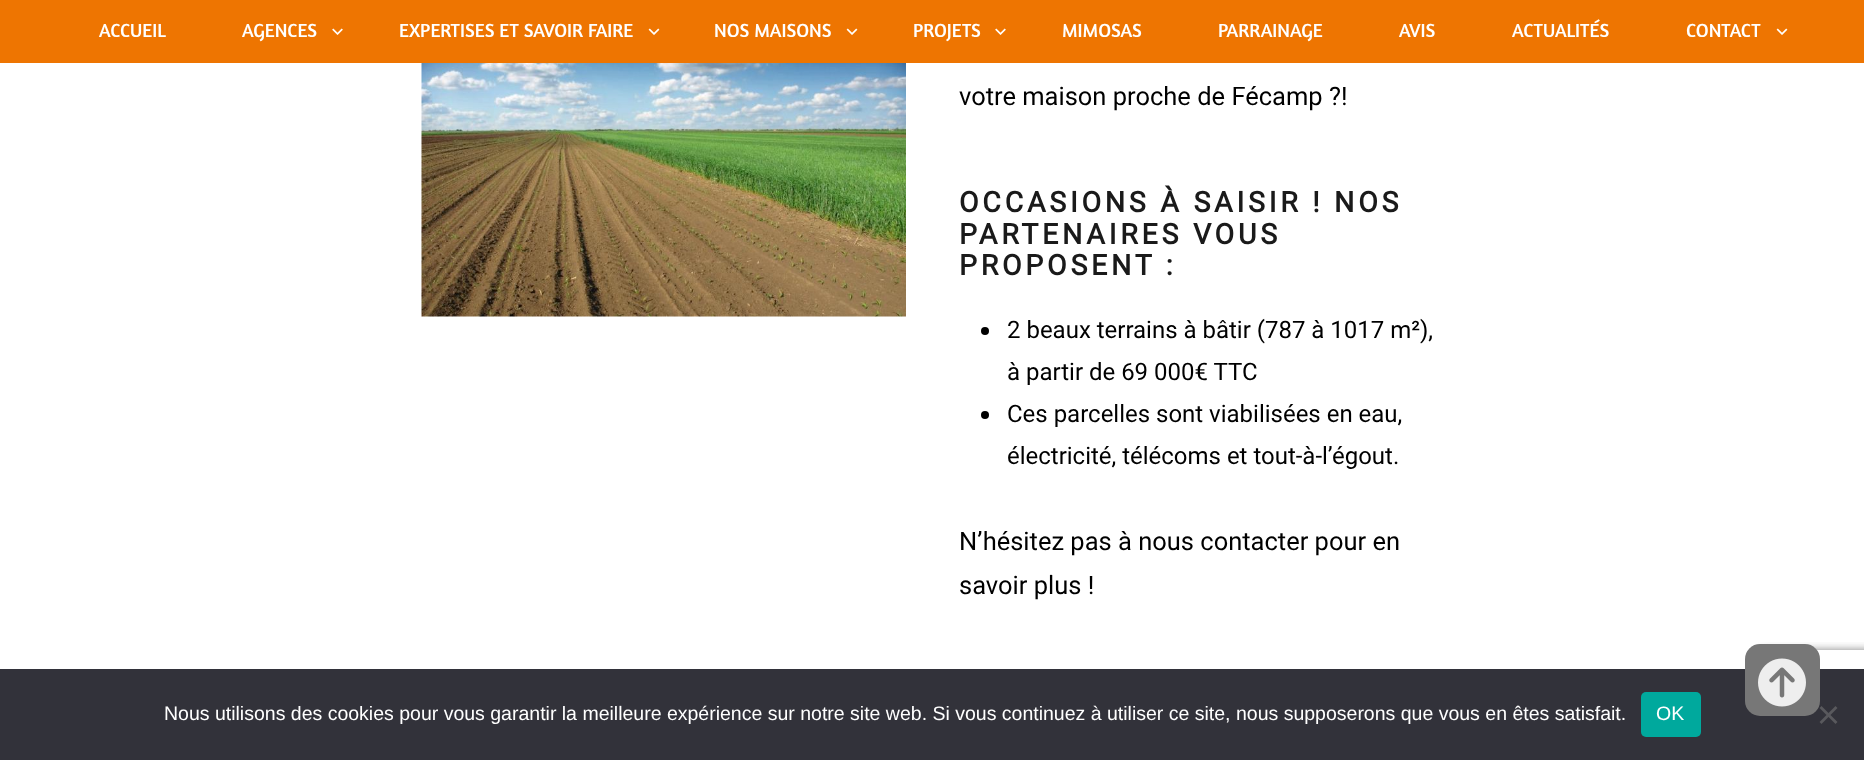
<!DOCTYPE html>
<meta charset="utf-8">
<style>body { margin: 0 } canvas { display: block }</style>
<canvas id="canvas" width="1864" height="760"></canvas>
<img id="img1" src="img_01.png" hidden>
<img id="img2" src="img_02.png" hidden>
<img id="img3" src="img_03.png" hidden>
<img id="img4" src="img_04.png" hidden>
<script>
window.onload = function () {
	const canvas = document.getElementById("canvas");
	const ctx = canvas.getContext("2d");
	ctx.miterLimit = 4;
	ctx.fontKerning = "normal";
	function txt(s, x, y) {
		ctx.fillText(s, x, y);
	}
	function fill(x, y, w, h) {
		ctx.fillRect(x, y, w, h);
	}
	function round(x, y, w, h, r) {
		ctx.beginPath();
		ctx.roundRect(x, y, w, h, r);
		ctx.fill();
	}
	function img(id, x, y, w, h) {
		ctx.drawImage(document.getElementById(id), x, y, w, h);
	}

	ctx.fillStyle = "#FFFFFF";
	fill(0, 0, 1864, 760);
	ctx.fillStyle = "#EE7501";
	fill(0, 0, 1864, 63);
	img("img1", 332, 28, 11, 7);
	img("img2", 648, 28, 12, 7);
	img("img2", 846, 28, 12, 7);
	img("img1", 995, 28, 11, 7);
	img("img2", 1776, 28, 12, 7);
	img("img3", 421, 63, 485, 254);
	ctx.fillStyle = "#000000";
	ctx.beginPath();
	ctx.arc(985, 331, 4, 0, Math.PI * 2);
	ctx.fill();
	ctx.beginPath();
	ctx.arc(985, 415, 4, 0, Math.PI * 2);
	ctx.fill();
	ctx.save();
	ctx.beginPath();
	ctx.rect(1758, 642, 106, 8);
	ctx.clip();
	ctx.fillStyle = "#808080";
	ctx.filter = "blur(4px)";
	ctx.beginPath();
	ctx.roundRect(1760, 650, 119, 90, 3);
	ctx.fill();
	ctx.filter = "none";
	ctx.restore();
	ctx.fillStyle = "#32323A";
	fill(0, 669, 1864, 91);
	ctx.fillStyle = "#00A99D";
	round(1641, 692, 60, 45, 5);
	ctx.fillStyle = "#59595D";
	ctx.beginPath();
	ctx.moveTo(1835.5, 706);
	ctx.lineTo(1837.5, 708);
	ctx.lineTo(1821.5, 724);
	ctx.lineTo(1819.5, 722);
	ctx.closePath();
	ctx.fill();
	ctx.beginPath();
	ctx.moveTo(1819.5, 708);
	ctx.lineTo(1821.5, 706);
	ctx.lineTo(1837.5, 722);
	ctx.lineTo(1835.5, 724);
	ctx.closePath();
	ctx.fill();
	ctx.fillStyle = "#777777";
	round(1745, 644, 75, 72, 15);
	img("img4", 1758, 658, 48, 49);
	ctx.font = "19.25px Amaranth";
	ctx.fillStyle = "#FFFFFF";
	txt("ACCUEIL", 99, 37);
	txt("AGENCES", 242, 37);
	txt("EXPERTISES ET SAVOIR FAIRE", 399, 37);
	txt("NOS MAISONS", 714, 37);
	txt("PROJETS", 913, 37);
	txt("MIMOSAS", 1062, 37);
	txt("PARRAINAGE", 1218, 37);
	txt("AVIS", 1399, 37);
	txt("ACTUALITÉS", 1512, 37);
	txt("CONTACT", 1686, 37);
	ctx.font = "25.5px Roboto";
	ctx.fillStyle = "#000000";
	txt("votre maison proche de Fécamp ?!", 959, 105);
	ctx.letterSpacing = "3.75px";
	ctx.font = "bold 28.5px Roboto";
	ctx.fillStyle = "#1A1A1A";
	txt("OCCASIONS À SAISIR ! NOS", 959, 212);
	txt("PARTENAIRES VOUS", 959, 244);
	txt("PROPOSENT :", 959, 275);
	ctx.letterSpacing = "0px";
	ctx.font = "24px Roboto";
	ctx.fillStyle = "#000000";
	txt("2 beaux terrains à bâtir (787 à 1017 m²),", 1007, 338);
	txt("à partir de 69 000€ TTC", 1007, 380);
	txt("Ces parcelles sont viabilisées en eau,", 1007, 422);
	txt("électricité, télécoms et tout-à-l’égout.", 1007, 464);
	ctx.font = "25.5px Roboto";
	txt("N’hésitez pas à nous contacter pour en", 959, 550);
	txt("savoir plus !", 959, 594);
	ctx.font = "19.5px Liberation Sans";
	ctx.fillStyle = "#FFFFFF";
	txt("Nous utilisons des cookies pour vous garantir la meilleure expérience sur notre site web. Si vous continuez à utiliser ce site, nous supposerons que vous en êtes satisfait.", 164, 720);
	txt("OK", 1656, 720);
};
</script>
